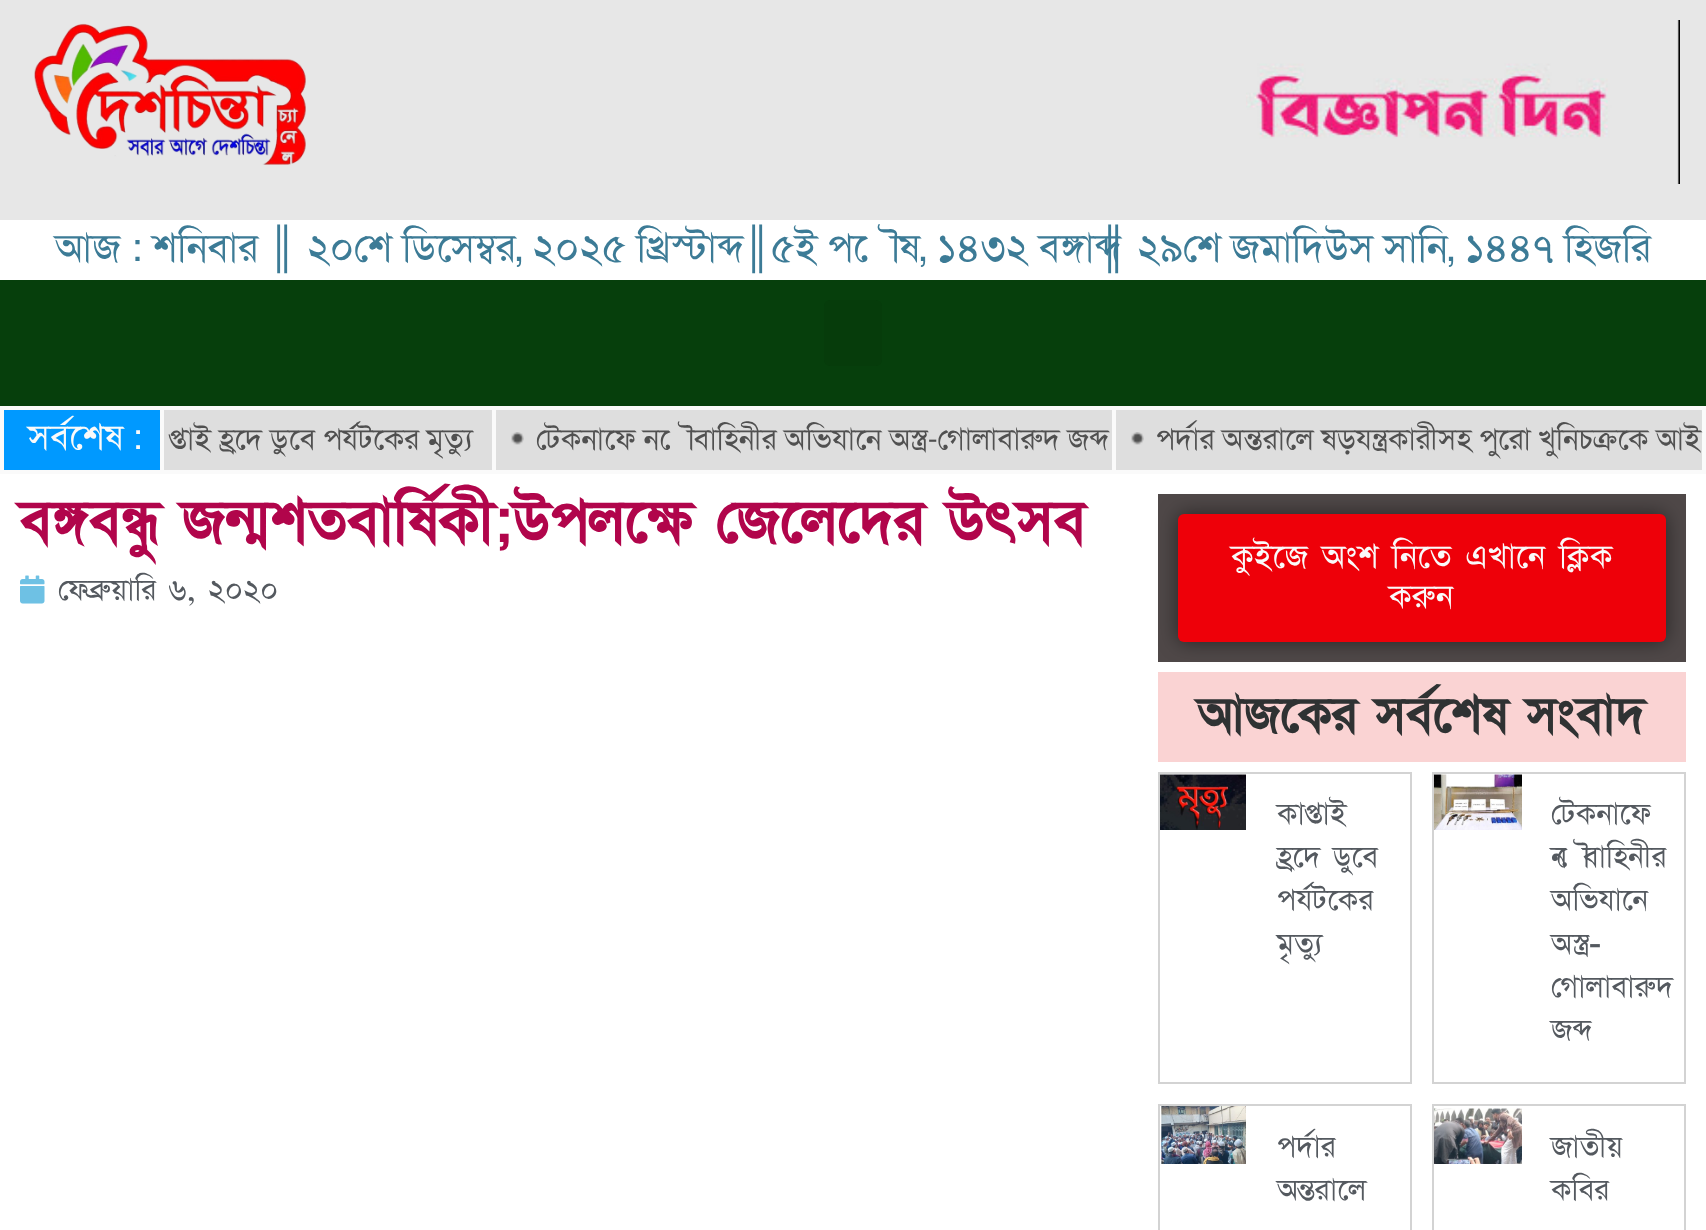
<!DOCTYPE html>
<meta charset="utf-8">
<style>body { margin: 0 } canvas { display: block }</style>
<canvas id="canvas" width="1706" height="1230"></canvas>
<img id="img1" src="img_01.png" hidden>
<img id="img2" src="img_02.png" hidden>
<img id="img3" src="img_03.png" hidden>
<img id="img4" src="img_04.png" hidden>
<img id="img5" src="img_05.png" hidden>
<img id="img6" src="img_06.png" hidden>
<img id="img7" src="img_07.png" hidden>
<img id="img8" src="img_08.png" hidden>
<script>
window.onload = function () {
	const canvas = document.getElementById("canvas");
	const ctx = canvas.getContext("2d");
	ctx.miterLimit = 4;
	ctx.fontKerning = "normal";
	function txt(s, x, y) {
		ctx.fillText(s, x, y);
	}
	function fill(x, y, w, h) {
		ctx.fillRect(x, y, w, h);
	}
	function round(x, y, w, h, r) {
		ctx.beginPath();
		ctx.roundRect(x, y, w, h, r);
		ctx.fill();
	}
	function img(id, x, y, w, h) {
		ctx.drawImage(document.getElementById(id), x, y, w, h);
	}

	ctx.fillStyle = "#FFFFFF";
	fill(0, 0, 1706, 1230);
	ctx.fillStyle = "#E7E7E7";
	fill(0, 0, 1706, 220);
	img("img1", 34, 23, 272, 142);
	img("img2", 1246, 20, 434, 164);
	ctx.fillStyle = "#063F0C";
	fill(0, 280, 1706, 126);
	ctx.fillStyle = "#063C0B";
	round(824, 300, 58, 66, 6);
	ctx.fillStyle = "#FAFAFA";
	fill(0, 406, 1706, 68);
	ctx.fillStyle = "#0099FF";
	fill(4, 410, 156, 60);
	ctx.fillStyle = "#DEDEDE";
	fill(164, 410, 328, 60);
	fill(496, 410, 616, 60);
	img("img3", 511, 432, 13, 13);
	fill(1116, 410, 586, 60);
	img("img3", 1131, 432, 13, 13);
	img("img4", 20, 575, 25, 29);
	ctx.fillStyle = "#4F4848";
	fill(1158, 494, 528, 168);
	ctx.fillStyle = "rgba(0, 0, 0, 0.5)";
	ctx.filter = "blur(10px)";
	ctx.beginPath();
	ctx.roundRect(1178, 514, 488, 128, 6);
	ctx.fill();
	ctx.filter = "none";
	ctx.fillStyle = "#EE0009";
	round(1178, 514, 488, 128, 6);
	ctx.fillStyle = "#FAD3D3";
	fill(1158, 672, 528, 90);
	ctx.strokeStyle = "#D3D3D3";
	ctx.lineWidth = 2;
	ctx.strokeRect(1159, 773, 252, 310);
	img("img5", 1160, 774, 86, 56);
	ctx.strokeRect(1433, 773, 252, 310);
	img("img6", 1434, 774, 88, 56);
	ctx.strokeRect(1159, 1105, 252, 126);
	img("img7", 1161, 1106, 85, 58);
	ctx.strokeRect(1433, 1105, 252, 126);
	img("img8", 1434, 1108, 88, 56);
	ctx.font = "40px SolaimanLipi";
	ctx.fillStyle = "#3C7B96";
	txt("আজ : শনিবার", 55, 261);
	ctx.font = "40px Liberation Sans";
	txt("║", 268, 261);
	ctx.font = "40px SolaimanLipi";
	txt("২০শে ডিসেম্বর, ২০২৫ খ্রিস্টাব্দ", 307, 261);
	ctx.font = "40px Liberation Sans";
	txt("║", 743, 261);
	ctx.font = "40px SolaimanLipi";
	txt("৫ই পৌষ, ১৪৩২ বঙ্গাব্দ", 771, 261);
	ctx.font = "40px Liberation Sans";
	txt("║", 1099, 261);
	ctx.font = "40px SolaimanLipi";
	txt("২৯শে জমাদিউস সানি, ১৪৪৭ হিজরি", 1137, 261);
	ctx.font = "36px SolaimanLipi";
	ctx.fillStyle = "#FAFAFA";
	txt("সর্বশেষ :", 28, 449);
	ctx.font = "30px SolaimanLipi";
	ctx.fillStyle = "#505050";
	txt("প্তাই হ্রদে ডুবে পর্যটকের মৃত্যু", 168, 449);
	txt("টেকনাফে নৌবাহিনীর অভিযানে অস্ত্র-গোলাবারুদ জব্দ", 536, 449);
	txt("পর্দার অন্তরালে ষড়যন্ত্রকারীসহ পুরো খুনিচক্রকে আই", 1156, 449);
	ctx.font = "bold 60px SolaimanLipi";
	ctx.fillStyle = "#B1054B";
	txt("বঙ্গবন্ধু জন্মশতবার্ষিকী;উপলক্ষে জেলেদের উৎসব", 20, 541);
	ctx.font = "500 36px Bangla";
	ctx.fillStyle = "#54595F";
	txt("ফেব্রুয়ারি ৬, ২০২০", 58, 601);
	ctx.font = "500 40px Bangla";
	ctx.fillStyle = "#FAFAFA";
	txt("কুইজে অংশ নিতে এখানে ক্লিক", 1231, 569);
	txt("করুন", 1389, 609);
	ctx.font = "bold 50px SolaimanLipi";
	ctx.fillStyle = "#2F3233";
	txt("আজকের সর্বশেষ সংবাদ", 1198, 731);
	ctx.font = "500 36px Bangla";
	ctx.fillStyle = "#54595F";
	txt("কাপ্তাই", 1277, 825);
	txt("হ্রদে ডুবে", 1277, 868);
	txt("পর্যটকের", 1277, 911);
	txt("মৃত্যু", 1277, 955);
	txt("টেকনাফে", 1551, 825);
	txt("নৌবাহিনীর", 1551, 868);
	txt("অভিযানে", 1551, 911);
	txt("অস্ত্র-", 1551, 955);
	txt("গোলাবারুদ", 1551, 998);
	txt("জব্দ", 1551, 1041);
	txt("পর্দার", 1277, 1158);
	txt("অন্তরালে", 1277, 1201);
	txt("জাতীয়", 1551, 1158);
	txt("কবির", 1551, 1201);
};
</script>
